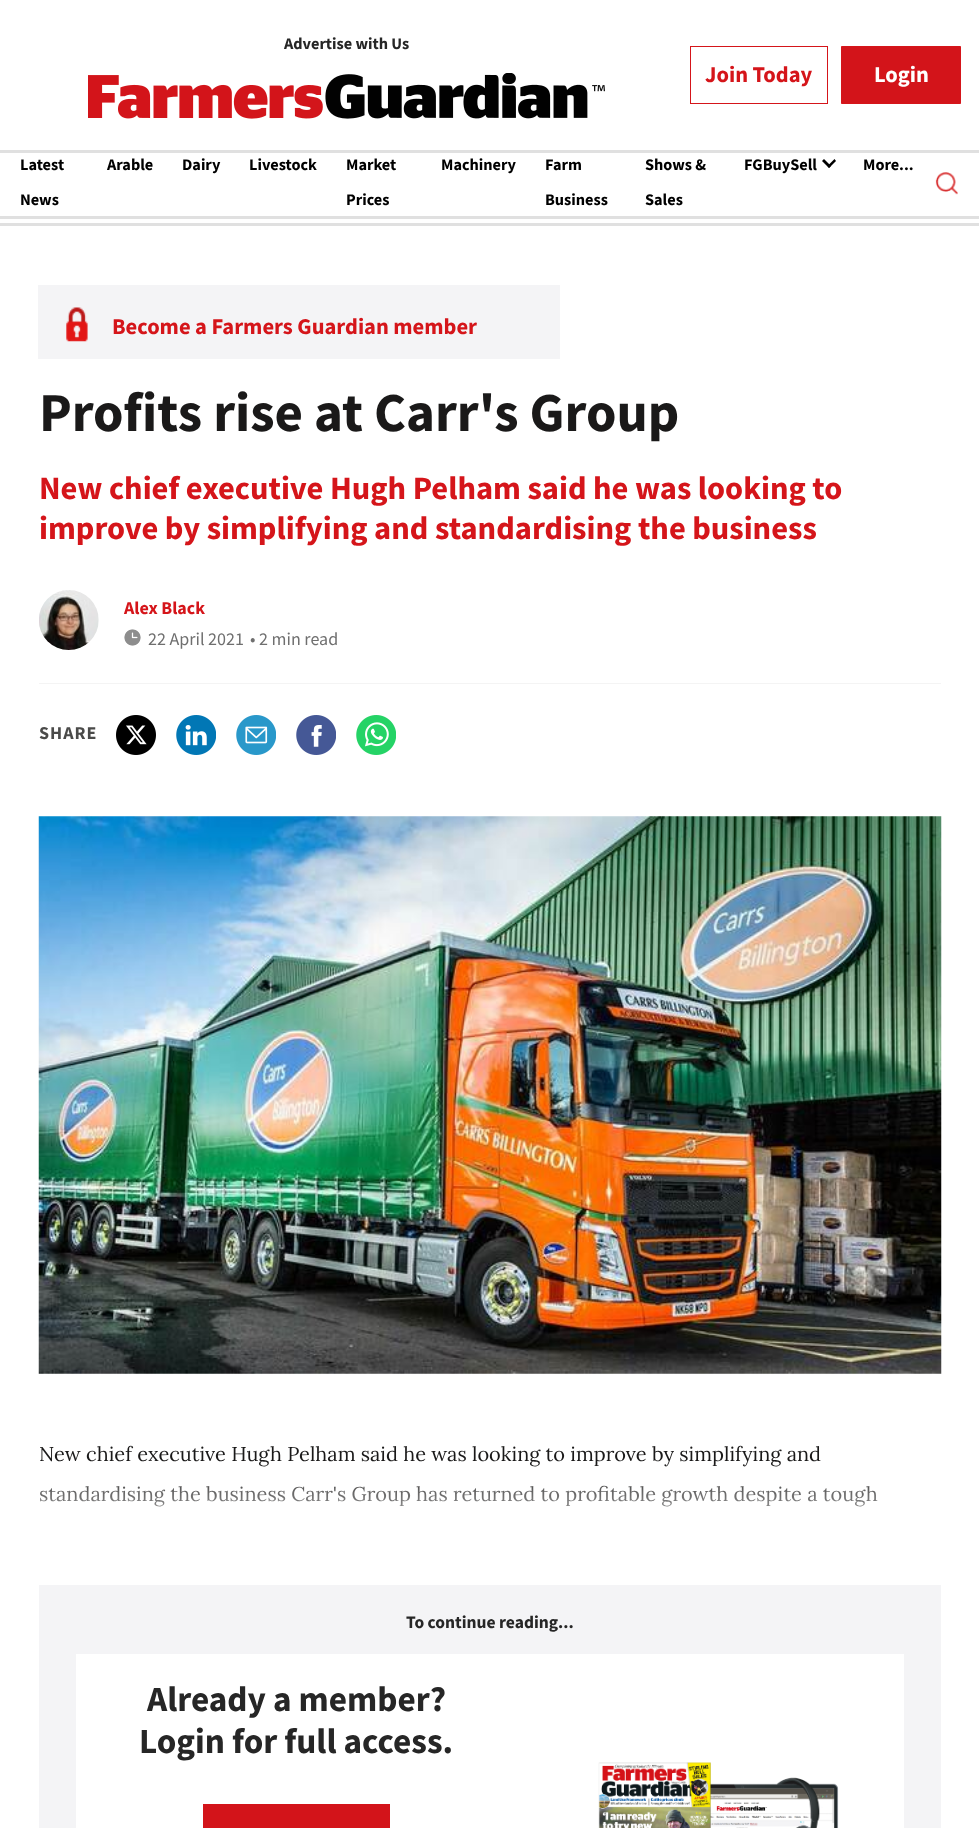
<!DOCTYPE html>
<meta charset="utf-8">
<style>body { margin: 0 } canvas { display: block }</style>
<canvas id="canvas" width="979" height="1828"></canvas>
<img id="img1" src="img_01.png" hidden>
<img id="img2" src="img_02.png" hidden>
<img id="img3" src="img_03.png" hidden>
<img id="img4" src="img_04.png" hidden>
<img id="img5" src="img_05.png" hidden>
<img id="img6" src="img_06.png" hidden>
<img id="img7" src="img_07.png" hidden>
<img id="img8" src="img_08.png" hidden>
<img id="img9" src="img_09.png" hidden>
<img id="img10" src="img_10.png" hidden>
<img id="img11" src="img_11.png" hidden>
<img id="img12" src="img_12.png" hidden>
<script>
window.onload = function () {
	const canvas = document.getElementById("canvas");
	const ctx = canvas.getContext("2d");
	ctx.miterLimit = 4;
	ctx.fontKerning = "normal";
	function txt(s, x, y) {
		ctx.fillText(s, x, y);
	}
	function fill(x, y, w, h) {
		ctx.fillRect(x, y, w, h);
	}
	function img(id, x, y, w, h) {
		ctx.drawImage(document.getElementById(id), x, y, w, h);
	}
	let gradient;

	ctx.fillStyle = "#FFFFFF";
	fill(0, 0, 979, 1828);
	img("img1", 88, 73, 517, 46);
	ctx.strokeStyle = "#D5151A";
	ctx.strokeRect(690.5, 46.5, 137, 57);
	ctx.fillStyle = "#D3141A";
	ctx.beginPath();
	ctx.rect(841.5, 46.5, 119, 57);
	ctx.fill();
	ctx.stroke();
	ctx.fillStyle = "#E0E0E0";
	fill(0, 150, 979, 3);
	fill(0, 216, 979, 3);
	ctx.fillStyle = "#000000";
	ctx.beginPath();
	ctx.moveTo(834.5, 159);
	ctx.lineTo(836, 161);
	ctx.lineTo(829, 168);
	ctx.lineTo(827.5, 166);
	ctx.closePath();
	ctx.fill();
	ctx.beginPath();
	ctx.moveTo(824, 159);
	ctx.lineTo(831, 166);
	ctx.lineTo(829, 168);
	ctx.lineTo(822, 161);
	ctx.closePath();
	ctx.fill();
	img("img2", 935, 172, 23, 23);
	ctx.fillStyle = "#E0E0E0";
	fill(0, 223, 979, 3);
	ctx.fillStyle = "#F4F4F6";
	fill(38, 285, 522, 74);
	img("img3", 66, 307, 22, 35);
	img("img4", 39, 590, 60, 60);
	img("img5", 124, 629, 17, 17);
	ctx.fillStyle = "#F4F4F4";
	fill(39, 683, 902, 1);
	img("img6", 116, 715, 40, 40);
	img("img7", 176, 715, 40, 40);
	img("img8", 236, 715, 40, 40);
	img("img9", 296, 715, 40, 40);
	img("img10", 356, 715, 40, 40);
	img("img11", 38, 816, 904, 558);
	ctx.fillStyle = "#F4F4F6";
	fill(39, 1585, 902, 243);
	ctx.fillStyle = "#FFFFFF";
	fill(76, 1654, 828, 174);
	ctx.fillStyle = "#D3141A";
	fill(203, 1804, 187, 24);
	img("img12", 598, 1762, 241, 66);
	ctx.font = "bold 16.25px Source Sans Pro";
	ctx.fillStyle = "#262626";
	txt("Advertise with Us", 284, 49);
	ctx.font = "bold 22.5px Source Sans Pro";
	ctx.fillStyle = "#D5151A";
	txt("Join Today", 705, 82);
	ctx.fillStyle = "#FFFFFF";
	txt("Login", 874, 82);
	ctx.font = "bold 16.25px Source Sans Pro";
	ctx.fillStyle = "#000000";
	txt("Latest", 20, 170);
	txt("News", 20, 205);
	txt("Arable", 107, 170);
	txt("Dairy", 182, 170);
	txt("Livestock", 249, 170);
	txt("Market", 346, 170);
	txt("Prices", 346, 205);
	txt("Machinery", 441, 170);
	txt("Farm", 545, 170);
	txt("Business", 545, 205);
	txt("Shows &", 645, 170);
	txt("Sales", 645, 205);
	txt("FGBuySell", 744, 170);
	txt("More...", 863, 170);
	ctx.font = "bold 22.5px Source Sans Pro";
	ctx.fillStyle = "#D5151A";
	txt("Become a Farmers Guardian member", 112, 334);
	ctx.font = "bold 55px Source Sans Pro";
	ctx.fillStyle = "#1A1919";
	txt("Profits rise at Carr's Group", 39, 431);
	ctx.font = "bold 32.5px Source Sans Pro";
	ctx.fillStyle = "#D5151A";
	txt("New chief executive Hugh Pelham said he was looking to", 39, 499);
	txt("improve by simplifying and standardising the business", 39, 539);
	ctx.font = "bold 18px Source Sans Pro";
	txt("Alex Black", 124, 614);
	ctx.font = "18px Source Sans Pro";
	ctx.fillStyle = "#6F6F6F";
	txt("22 April 2021", 148, 645);
	txt("• 2 min read", 250, 645);
	ctx.letterSpacing = "1px";
	ctx.font = "bold 18px Source Sans Pro";
	ctx.fillStyle = "#4A4A49";
	txt("SHARE", 39, 739);
	ctx.letterSpacing = "0px";
	ctx.font = "20px Lora";
	ctx.fillStyle = "#1A1919";
	txt("New chief executive Hugh Pelham said he was looking to improve by simplifying and", 39, 1461);
	txt("standardising the business Carr's Group has returned to profitable growth despite a tough", 39, 1501);
	gradient = ctx.createLinearGradient(490, 1554, 490, 1434);
	gradient.addColorStop(0, "#FFFFFF");
	gradient.addColorStop(0.77, "rgba(255, 255, 255, 0)");
	ctx.fillStyle = gradient;
	fill(39, 1464, 838, 43);
	ctx.font = "bold 17.5px Source Sans Pro";
	ctx.fillStyle = "#262626";
	txt("To continue reading...", 406, 1628);
	ctx.font = "bold 35.25px Source Sans Pro";
	txt("Already a member?", 147, 1711);
	txt("Login for full access.", 139, 1753);
};
</script>
